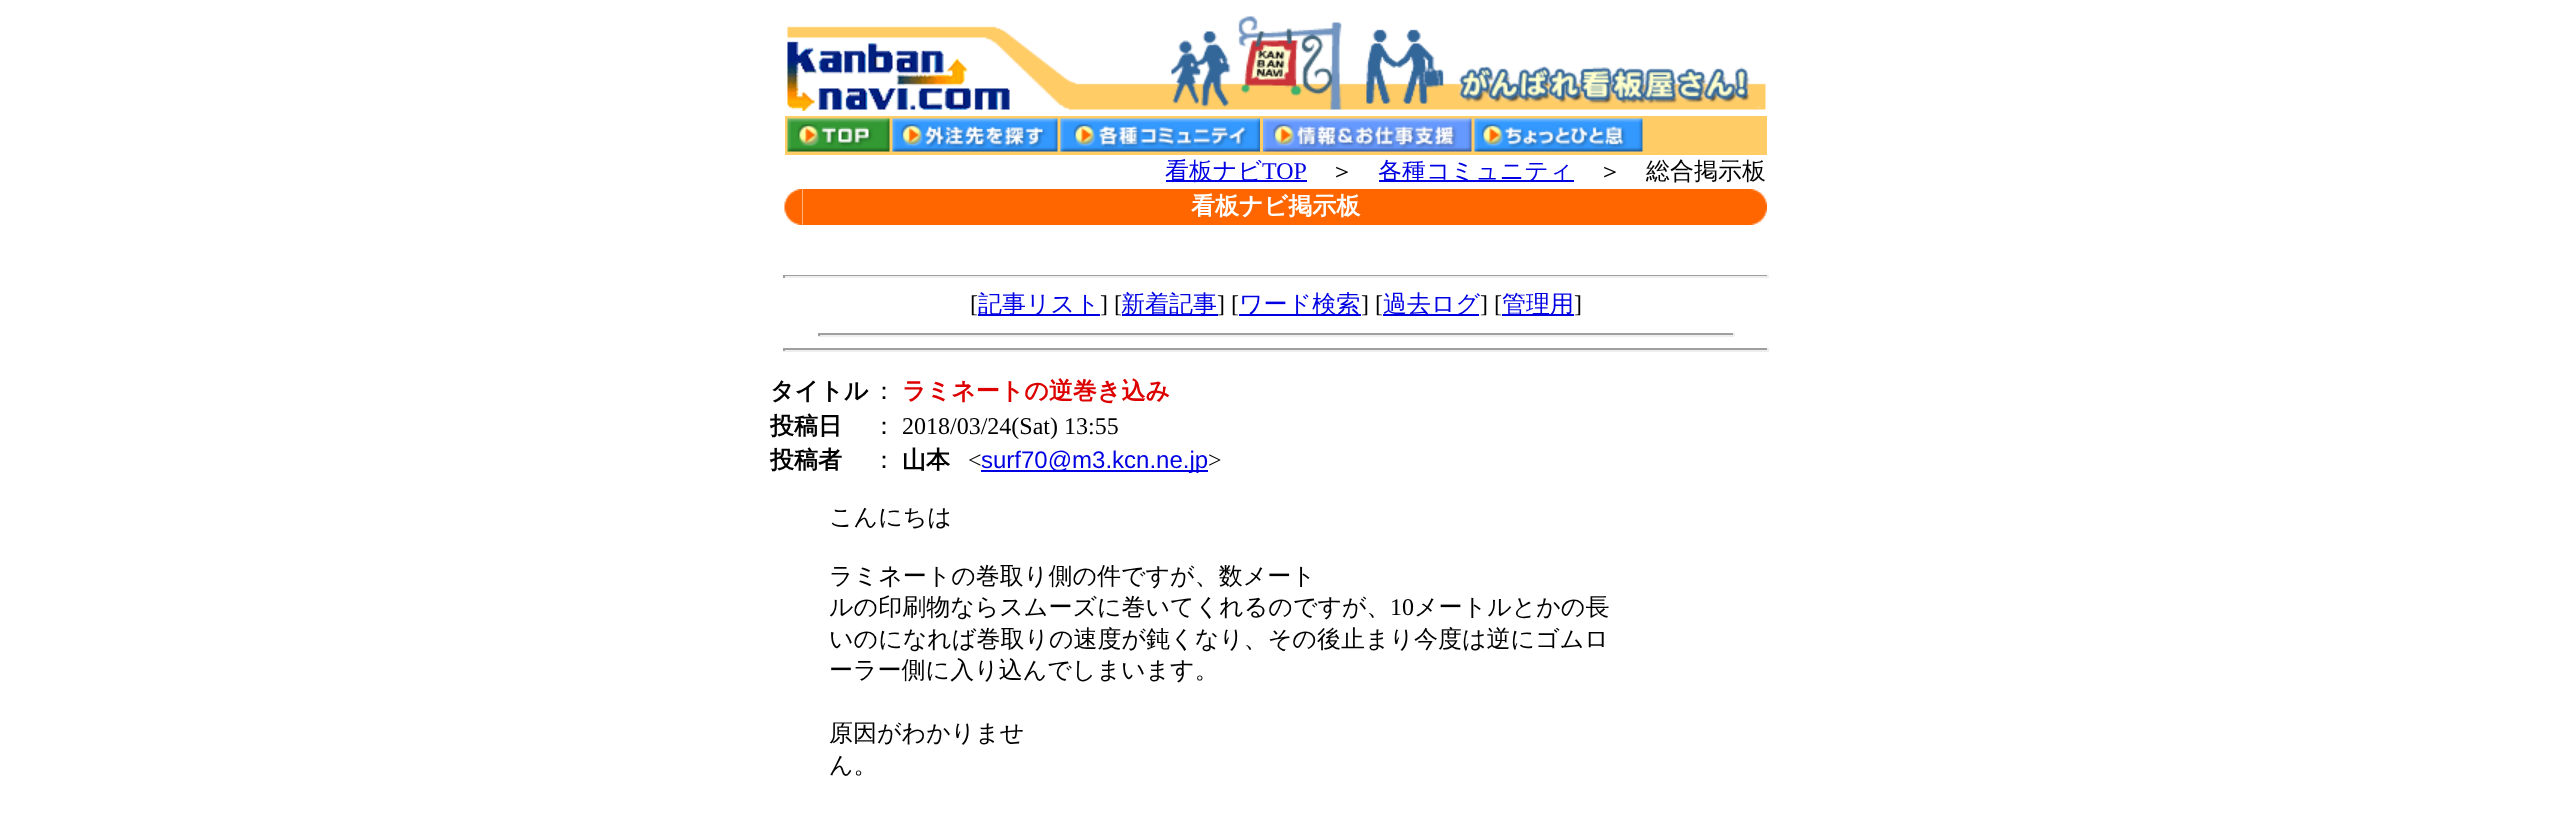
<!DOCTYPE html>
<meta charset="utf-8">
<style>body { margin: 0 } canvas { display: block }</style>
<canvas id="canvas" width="2551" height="826"></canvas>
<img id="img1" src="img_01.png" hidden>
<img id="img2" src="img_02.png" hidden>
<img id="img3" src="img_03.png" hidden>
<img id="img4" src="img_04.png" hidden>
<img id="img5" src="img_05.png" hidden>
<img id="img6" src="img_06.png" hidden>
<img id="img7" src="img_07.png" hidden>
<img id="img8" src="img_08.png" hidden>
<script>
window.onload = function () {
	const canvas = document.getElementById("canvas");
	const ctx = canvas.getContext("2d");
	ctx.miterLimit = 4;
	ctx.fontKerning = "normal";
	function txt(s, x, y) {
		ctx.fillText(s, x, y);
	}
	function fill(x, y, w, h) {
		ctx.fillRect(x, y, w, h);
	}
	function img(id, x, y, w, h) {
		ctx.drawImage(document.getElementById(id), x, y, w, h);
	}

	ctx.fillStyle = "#FFFFFF";
	fill(0, 0, 2551, 826);
	img("img1", 787, 16, 979, 95);
	ctx.strokeStyle = "#FFCC66";
	ctx.lineWidth = 2;
	ctx.strokeRect(786, 117, 980, 37);
	ctx.strokeRect(787, 118, 103, 34);
	img("img2", 787, 118, 103, 34);
	ctx.strokeRect(892, 118, 166, 34);
	img("img3", 892, 118, 166, 34);
	ctx.strokeRect(1060, 118, 201, 34);
	img("img4", 1060, 118, 200, 34);
	ctx.strokeRect(1263, 118, 209, 34);
	img("img5", 1263, 118, 209, 34);
	ctx.strokeRect(1474, 118, 169, 34);
	img("img6", 1474, 118, 169, 34);
	ctx.fillStyle = "#FFCC66";
	fill(1644, 118, 121, 35);
	ctx.fillStyle = "#0000E3";
	fill(1166, 180, 141, 2);
	fill(1379, 180, 195, 2);
	img("img7", 784, 189, 19, 36);
	ctx.fillStyle = "#FF6600";
	fill(803, 189, 946, 36);
	img("img8", 1749, 189, 18, 36);
	ctx.fillStyle = "#9F9F9F";
	fill(783, 275, 986, 1);
	ctx.fillStyle = "#EEEEEE";
	fill(1767, 275, 2, 3);
	fill(783, 276, 986, 2);
	ctx.fillStyle = "#9F9F9F";
	fill(783, 275, 2, 3);
	ctx.fillStyle = "#0000E3";
	fill(978, 314, 122, 2);
	fill(1122, 314, 96, 2);
	fill(1239, 314, 122, 2);
	fill(1383, 314, 96, 2);
	fill(1502, 314, 72, 2);
	ctx.fillStyle = "#9F9F9F";
	fill(818, 333, 916, 2);
	ctx.fillStyle = "#EEEEEE";
	fill(1733, 333, 2, 3);
	fill(818, 335, 916, 2);
	ctx.fillStyle = "#9F9F9F";
	fill(818, 333, 2, 3);
	fill(783, 348, 986, 2);
	ctx.fillStyle = "#EEEEEE";
	fill(1767, 348, 2, 3);
	fill(783, 350, 986, 2);
	ctx.fillStyle = "#9F9F9F";
	fill(783, 348, 2, 3);
	ctx.fillStyle = "#0000E3";
	fill(981, 470, 227, 2);
	ctx.font = "500 24px WenQuanYi Zen Hei";
	txt("看板ナビ", 1165, 179);
	ctx.font = "24px Liberation Serif";
	txt("TOP", 1262, 179);
	ctx.font = "500 24px WenQuanYi Zen Hei";
	ctx.fillStyle = "#000000";
	txt("＞", 1330, 179);
	ctx.fillStyle = "#0000E3";
	txt("各種コミュニティ", 1378, 179);
	ctx.fillStyle = "#000000";
	txt("＞　総合掲示板", 1598, 179);
	ctx.font = "bold 24px WenQuanYi Zen Hei";
	ctx.fillStyle = "#FFFFFF";
	txt("看板ナビ掲示板", 1191, 214);
	ctx.font = "24px Liberation Serif";
	ctx.fillStyle = "#000000";
	txt("[", 970, 312);
	ctx.font = "500 24px WenQuanYi Zen Hei";
	ctx.fillStyle = "#0000E3";
	txt("記事リスト", 978, 312);
	ctx.font = "24px Liberation Serif";
	ctx.fillStyle = "#000000";
	txt("] [", 1100, 312);
	ctx.font = "500 24px WenQuanYi Zen Hei";
	ctx.fillStyle = "#0000E3";
	txt("新着記事", 1121, 312);
	ctx.font = "24px Liberation Serif";
	ctx.fillStyle = "#000000";
	txt("] [", 1217, 312);
	ctx.font = "500 24px WenQuanYi Zen Hei";
	ctx.fillStyle = "#0000E3";
	txt("ワード検索", 1239, 312);
	ctx.font = "24px Liberation Serif";
	ctx.fillStyle = "#000000";
	txt("] [", 1361, 312);
	ctx.font = "500 24px WenQuanYi Zen Hei";
	ctx.fillStyle = "#0000E3";
	txt("過去ログ", 1383, 312);
	ctx.font = "24px Liberation Serif";
	ctx.fillStyle = "#000000";
	txt("] [", 1480, 312);
	ctx.font = "500 24px WenQuanYi Zen Hei";
	ctx.fillStyle = "#0000E3";
	txt("管理用", 1502, 312);
	ctx.font = "24px Liberation Serif";
	ctx.fillStyle = "#000000";
	txt("]", 1574, 312);
	ctx.font = "bold 24px WenQuanYi Zen Hei";
	txt("タイトル", 770, 399);
	ctx.font = "500 24px WenQuanYi Zen Hei";
	txt("：", 872, 399);
	ctx.font = "bold 24px WenQuanYi Zen Hei";
	ctx.fillStyle = "#DD0000";
	txt("ラミネートの逆巻き込み", 902, 399);
	ctx.fillStyle = "#000000";
	txt("投稿日", 770, 434);
	ctx.font = "500 24px WenQuanYi Zen Hei";
	txt("：", 872, 434);
	ctx.font = "24px Liberation Serif";
	txt("2018/03/24(Sat) 13:55", 902, 434);
	ctx.font = "bold 24px WenQuanYi Zen Hei";
	txt("投稿者", 770, 468);
	ctx.font = "500 24px WenQuanYi Zen Hei";
	txt("：", 872, 468);
	ctx.font = "bold 24px WenQuanYi Zen Hei";
	txt("山本", 902, 468);
	ctx.font = "24px Liberation Serif";
	txt("<", 968, 468);
	ctx.font = "24px Liberation Sans";
	ctx.fillStyle = "#0000E3";
	txt("surf70@m3.kcn.ne.jp", 981, 468);
	ctx.font = "24px Liberation Serif";
	ctx.fillStyle = "#000000";
	txt(">", 1208, 468);
	ctx.font = "500 24px WenQuanYi Zen Hei";
	txt("こんにちは", 829, 525);
	txt("ラミネートの巻取り側の件ですが、数メート", 829, 584);
	txt("ルの印刷物ならスムーズに巻いてくれるのですが、", 829, 615);
	ctx.font = "24px Liberation Serif";
	txt("10", 1390, 615);
	ctx.font = "500 24px WenQuanYi Zen Hei";
	txt("メートルとかの長", 1414, 615);
	txt("いのになれば巻取りの速度が鈍くなり、その後止まり今度は逆にゴムロ", 829, 647);
	txt("ーラー側に入り込んでしまいます。", 829, 678);
	txt("原因がわかりませ", 829, 741);
	txt("ん。", 829, 773);
};
</script>
